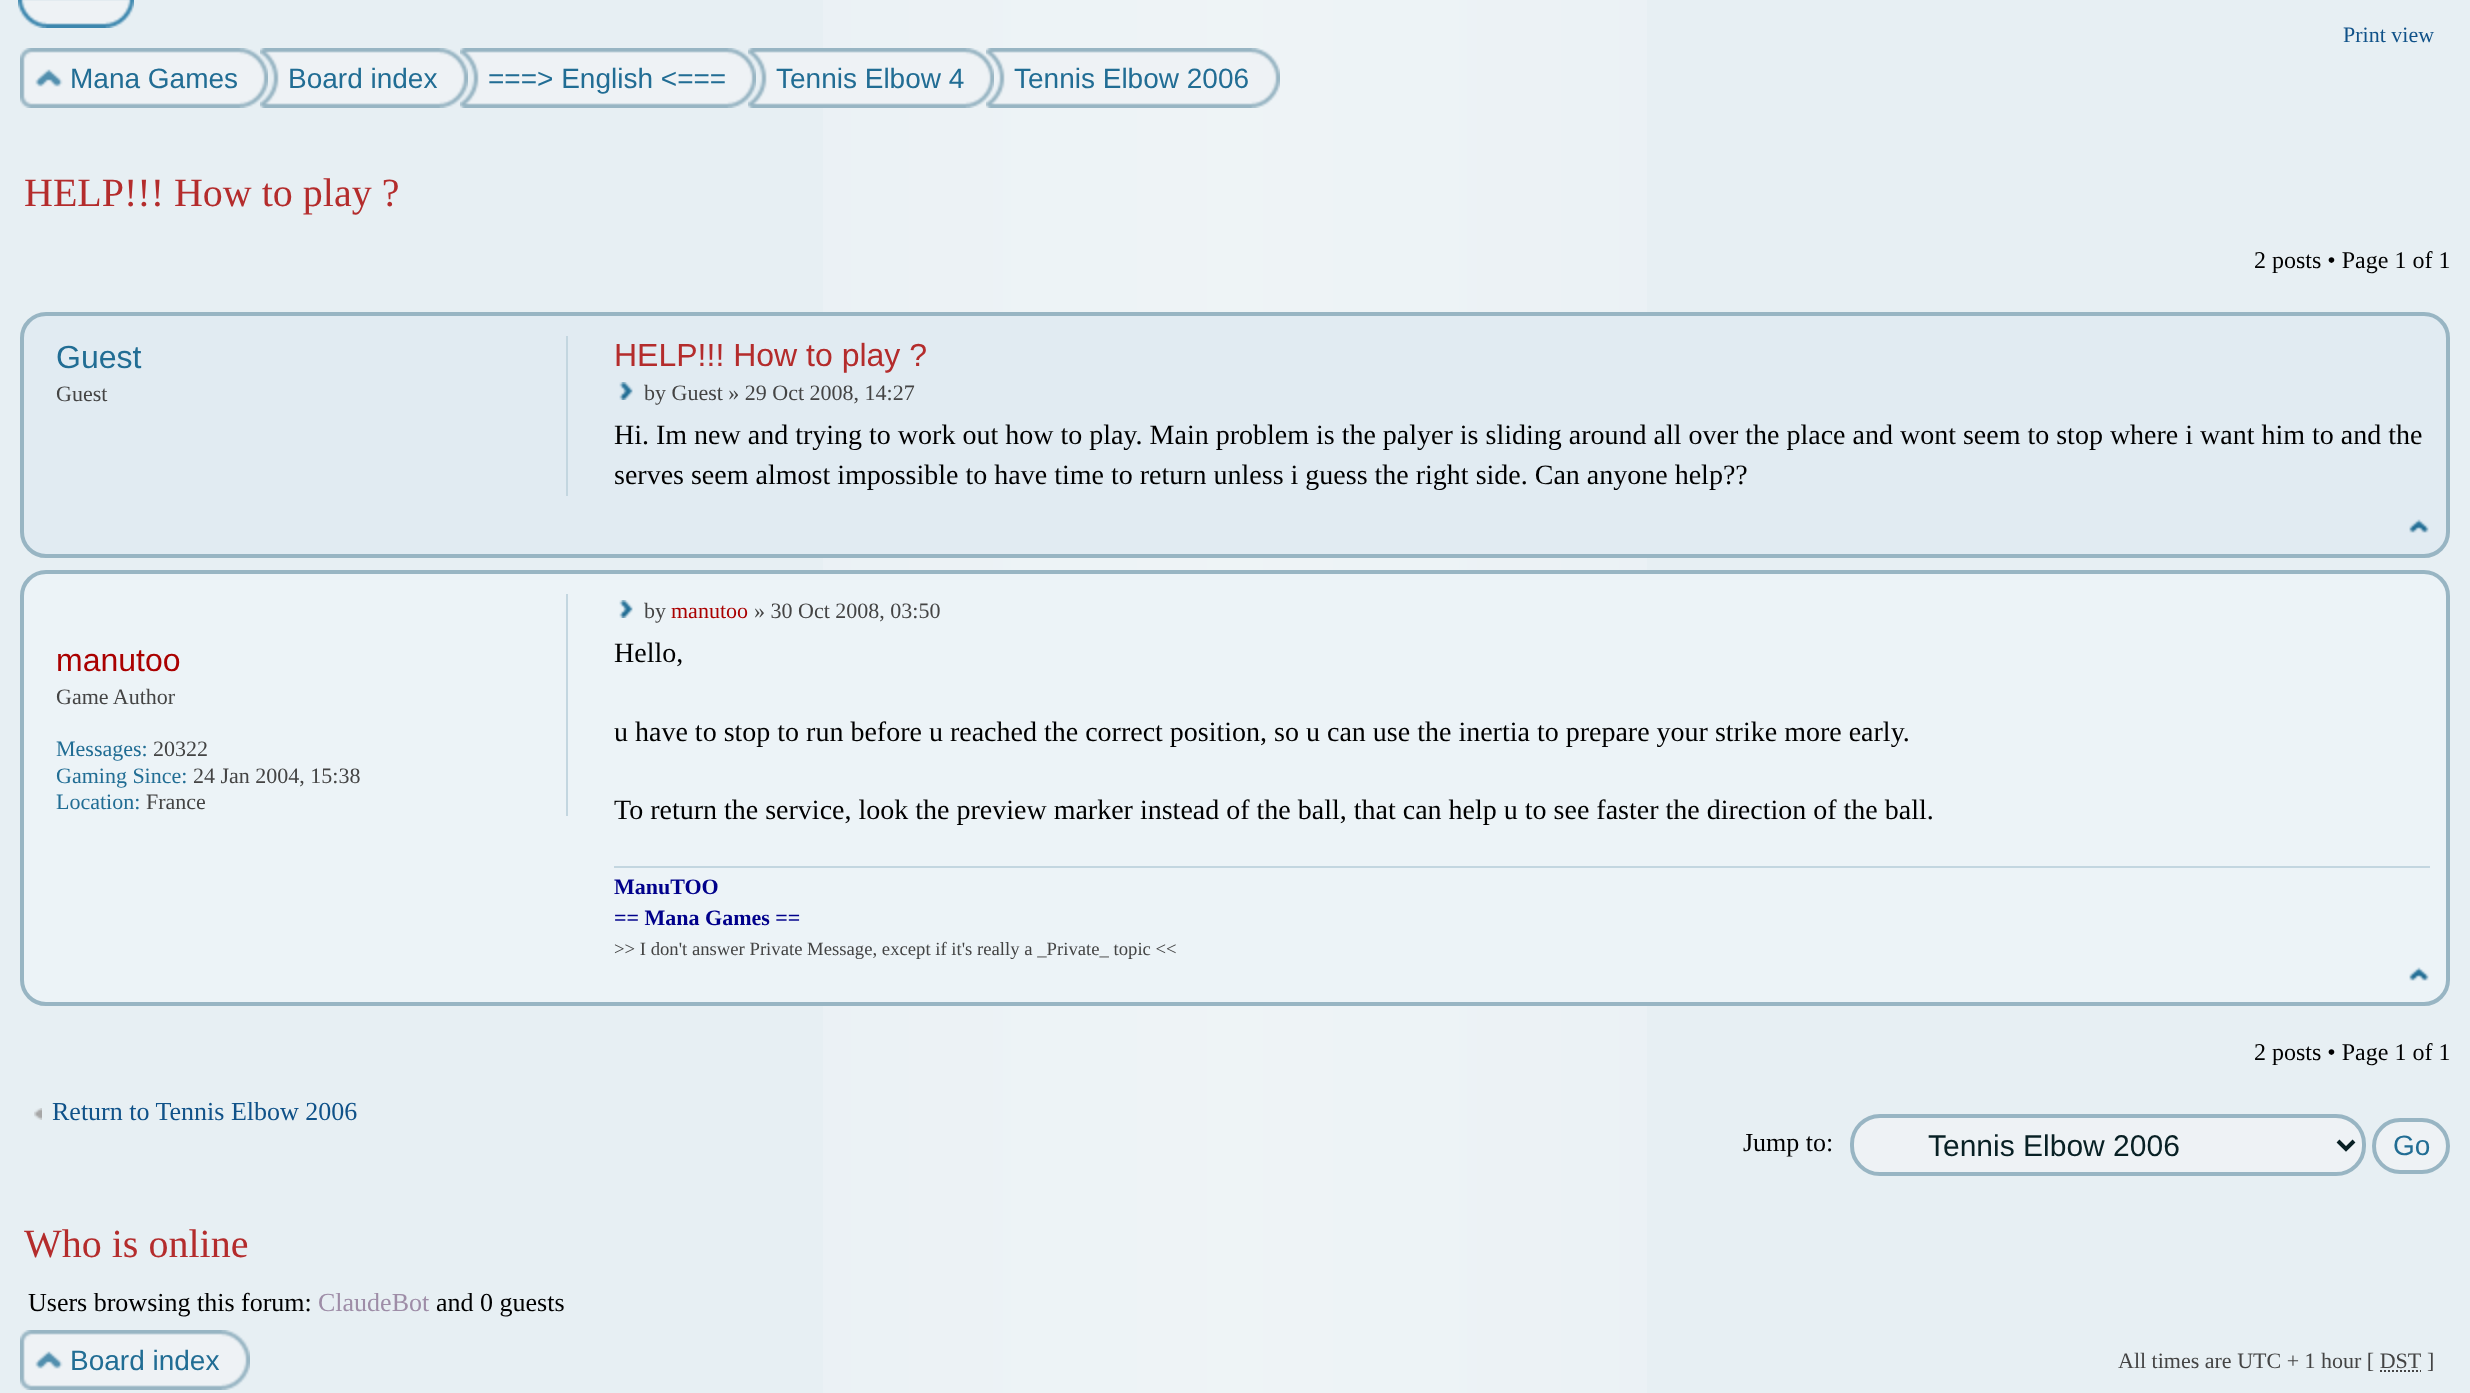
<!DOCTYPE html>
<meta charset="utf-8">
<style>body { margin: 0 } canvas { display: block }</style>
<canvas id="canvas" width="2470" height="1393"></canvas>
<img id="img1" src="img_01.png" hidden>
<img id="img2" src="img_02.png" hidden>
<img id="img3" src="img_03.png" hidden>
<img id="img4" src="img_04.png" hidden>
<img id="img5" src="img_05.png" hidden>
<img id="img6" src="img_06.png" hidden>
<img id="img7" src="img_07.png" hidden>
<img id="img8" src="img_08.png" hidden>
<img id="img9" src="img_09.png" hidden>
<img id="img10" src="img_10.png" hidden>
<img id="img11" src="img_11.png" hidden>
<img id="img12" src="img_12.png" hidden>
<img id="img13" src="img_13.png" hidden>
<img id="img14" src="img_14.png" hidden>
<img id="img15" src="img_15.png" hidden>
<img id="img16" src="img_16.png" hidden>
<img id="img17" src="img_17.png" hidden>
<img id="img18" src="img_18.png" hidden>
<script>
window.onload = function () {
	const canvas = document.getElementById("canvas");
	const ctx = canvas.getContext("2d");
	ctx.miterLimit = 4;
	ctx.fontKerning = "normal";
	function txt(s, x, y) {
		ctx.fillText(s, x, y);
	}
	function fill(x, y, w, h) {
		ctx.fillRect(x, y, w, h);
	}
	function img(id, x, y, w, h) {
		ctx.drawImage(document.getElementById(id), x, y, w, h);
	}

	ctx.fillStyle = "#E7EFF3";
	fill(0, 0, 2470, 1393);
	img("img1", 823, 0, 824, 1393);
	img("img2", 18, 0, 86, 28);
	img("img3", 104, 0, 30, 28);
	img("img4", 63, 48, 205, 60);
	img("img5", 20, 48, 43, 60);
	img("img6", 280, 48, 188, 60);
	img("img7", 260, 48, 20, 60);
	img("img8", 480, 48, 276, 60);
	img("img9", 460, 48, 20, 60);
	img("img10", 768, 48, 226, 60);
	img("img7", 748, 48, 20, 60);
	img("img11", 1006, 48, 274, 60);
	img("img12", 986, 48, 20, 60);
	ctx.fillStyle = "#E1EBF2";
	ctx.beginPath();
	ctx.roundRect(22, 314, 2426, 242, 24);
	ctx.fill();
	ctx.strokeStyle = "#98B5C3";
	ctx.lineWidth = 4;
	ctx.stroke();
	ctx.fillStyle = "#C3D6E0";
	fill(566, 336, 2, 160);
	img("img13", 619, 382, 14, 18);
	img("img14", 2409, 519, 20, 14);
	ctx.fillStyle = "#ECF3F7";
	ctx.beginPath();
	ctx.roundRect(22, 572, 2426, 432, 24);
	ctx.fill();
	ctx.stroke();
	ctx.fillStyle = "#C3D6E0";
	fill(566, 594, 2, 222);
	img("img15", 619, 600, 14, 18);
	fill(614, 866, 1816, 2);
	img("img16", 2409, 967, 20, 14);
	img("img17", 34, 1108, 8, 12);
	ctx.fillStyle = "#EEF2F5";
	ctx.beginPath();
	ctx.roundRect(1852, 1116, 512, 58, 28);
	ctx.fill();
	ctx.stroke();
	ctx.beginPath();
	ctx.moveTo(2338, 1141);
	ctx.lineTo(2346, 1149);
	ctx.lineTo(2354, 1141);
	ctx.strokeStyle = "#082024";
	ctx.stroke();
	ctx.beginPath();
	ctx.roundRect(2374, 1120, 74, 52, 26);
	ctx.fill();
	ctx.strokeStyle = "#98B5C3";
	ctx.stroke();
	img("img18", 63, 1330, 187, 60);
	img("img5", 20, 1330, 43, 60);
	ctx.beginPath();
	ctx.moveTo(2380, 1371);
	ctx.lineTo(2421, 1371);
	ctx.strokeStyle = "#444444";
	ctx.lineWidth = 2;
	ctx.setLineDash([2, 2]);
	ctx.stroke();
	ctx.font = "22px Liberation Serif";
	ctx.fillStyle = "#105289";
	txt("Print view", 2343, 42);
	ctx.font = "28px Liberation Sans";
	ctx.fillStyle = "#216D94";
	txt("Mana Games", 70, 88);
	txt("Board index", 288, 88);
	txt("===> English <===", 488, 88);
	txt("Tennis Elbow 4", 776, 88);
	txt("Tennis Elbow 2006", 1014, 88);
	ctx.font = "40px Liberation Serif";
	ctx.fillStyle = "#B42C2C";
	txt("HELP!!! How to play ?", 24, 206);
	ctx.font = "24px Liberation Serif";
	ctx.fillStyle = "#000000";
	txt("2 posts • Page 1 of 1", 2254, 268);
	ctx.font = "32px Liberation Sans";
	ctx.fillStyle = "#216D94";
	txt("Guest", 56, 368);
	ctx.font = "22px Liberation Serif";
	ctx.fillStyle = "#444444";
	txt("Guest", 56, 401);
	ctx.font = "32px Liberation Sans";
	ctx.fillStyle = "#B42C2C";
	txt("HELP!!! How to play ?", 614, 366);
	ctx.font = "22px Liberation Serif";
	ctx.fillStyle = "#444444";
	txt("by Guest » 29 Oct 2008, 14:27", 644, 400);
	ctx.font = "28px Liberation Serif";
	ctx.fillStyle = "#000000";
	txt("Hi. Im new and trying to work out how to play. Main problem is the palyer is sliding around all over the place and wont seem to stop where i want him to and the", 614, 444);
	txt("serves seem almost impossible to have time to return unless i guess the right side. Can anyone help??", 614, 484);
	ctx.font = "32px Liberation Sans";
	ctx.fillStyle = "#AA0000";
	txt("manutoo", 56, 671);
	ctx.font = "22px Liberation Serif";
	ctx.fillStyle = "#444444";
	txt("Game Author", 56, 704);
	ctx.fillStyle = "#216D94";
	txt("Messages:", 56, 756);
	ctx.fillStyle = "#444444";
	txt("20322", 153, 756);
	ctx.fillStyle = "#216D94";
	txt("Gaming Since:", 56, 783);
	ctx.fillStyle = "#444444";
	txt("24 Jan 2004, 15:38", 193, 783);
	ctx.fillStyle = "#216D94";
	txt("Location:", 56, 809);
	ctx.fillStyle = "#444444";
	txt("France", 146, 809);
	txt("by", 644, 618);
	ctx.fillStyle = "#AA0000";
	txt("manutoo", 671, 618);
	ctx.fillStyle = "#444444";
	txt("» 30 Oct 2008, 03:50", 754, 618);
	ctx.font = "28px Liberation Serif";
	ctx.fillStyle = "#000000";
	txt("Hello,", 614, 662);
	txt("u have to stop to run before u reached the correct position, so u can use the inertia to prepare your strike more early.", 614, 741);
	txt("To return the service, look the preview marker instead of the ball, that can help u to see faster the direction of the ball.", 614, 819);
	ctx.font = "bold 22px Liberation Serif";
	ctx.fillStyle = "#00008B";
	txt("ManuTOO", 614, 894);
	txt("== Mana Games ==", 614, 925);
	ctx.font = "18.7px Liberation Serif";
	ctx.fillStyle = "#444444";
	txt(">> I don't answer Private Message, except if it's really a _Private_ topic <<", 614, 955);
	ctx.font = "24px Liberation Serif";
	ctx.fillStyle = "#000000";
	txt("2 posts • Page 1 of 1", 2254, 1060);
	ctx.font = "26px Liberation Serif";
	ctx.fillStyle = "#105289";
	txt("Return to Tennis Elbow 2006", 52, 1120);
	ctx.fillStyle = "#000000";
	txt("Jump to:", 1743, 1151);
	ctx.font = "30px Liberation Sans";
	ctx.fillStyle = "#082024";
	txt("Tennis Elbow 2006", 1928, 1156);
	ctx.font = "28px Liberation Sans";
	ctx.fillStyle = "#216D94";
	txt("Go", 2393, 1155);
	ctx.font = "40px Liberation Serif";
	ctx.fillStyle = "#B42C2C";
	txt("Who is online", 24, 1257);
	ctx.font = "26px Liberation Serif";
	ctx.fillStyle = "#000000";
	txt("Users browsing this forum:", 28, 1311);
	ctx.fillStyle = "#9E8DA7";
	txt("ClaudeBot", 318, 1311);
	ctx.fillStyle = "#000000";
	txt("and 0 guests", 436, 1311);
	ctx.font = "28px Liberation Sans";
	ctx.fillStyle = "#216D94";
	txt("Board index", 70, 1370);
	ctx.font = "22px Liberation Serif";
	ctx.fillStyle = "#444444";
	txt("All times are UTC + 1 hour [ DST", 2118, 1368);
	txt("]", 2427, 1368);
};
</script>
